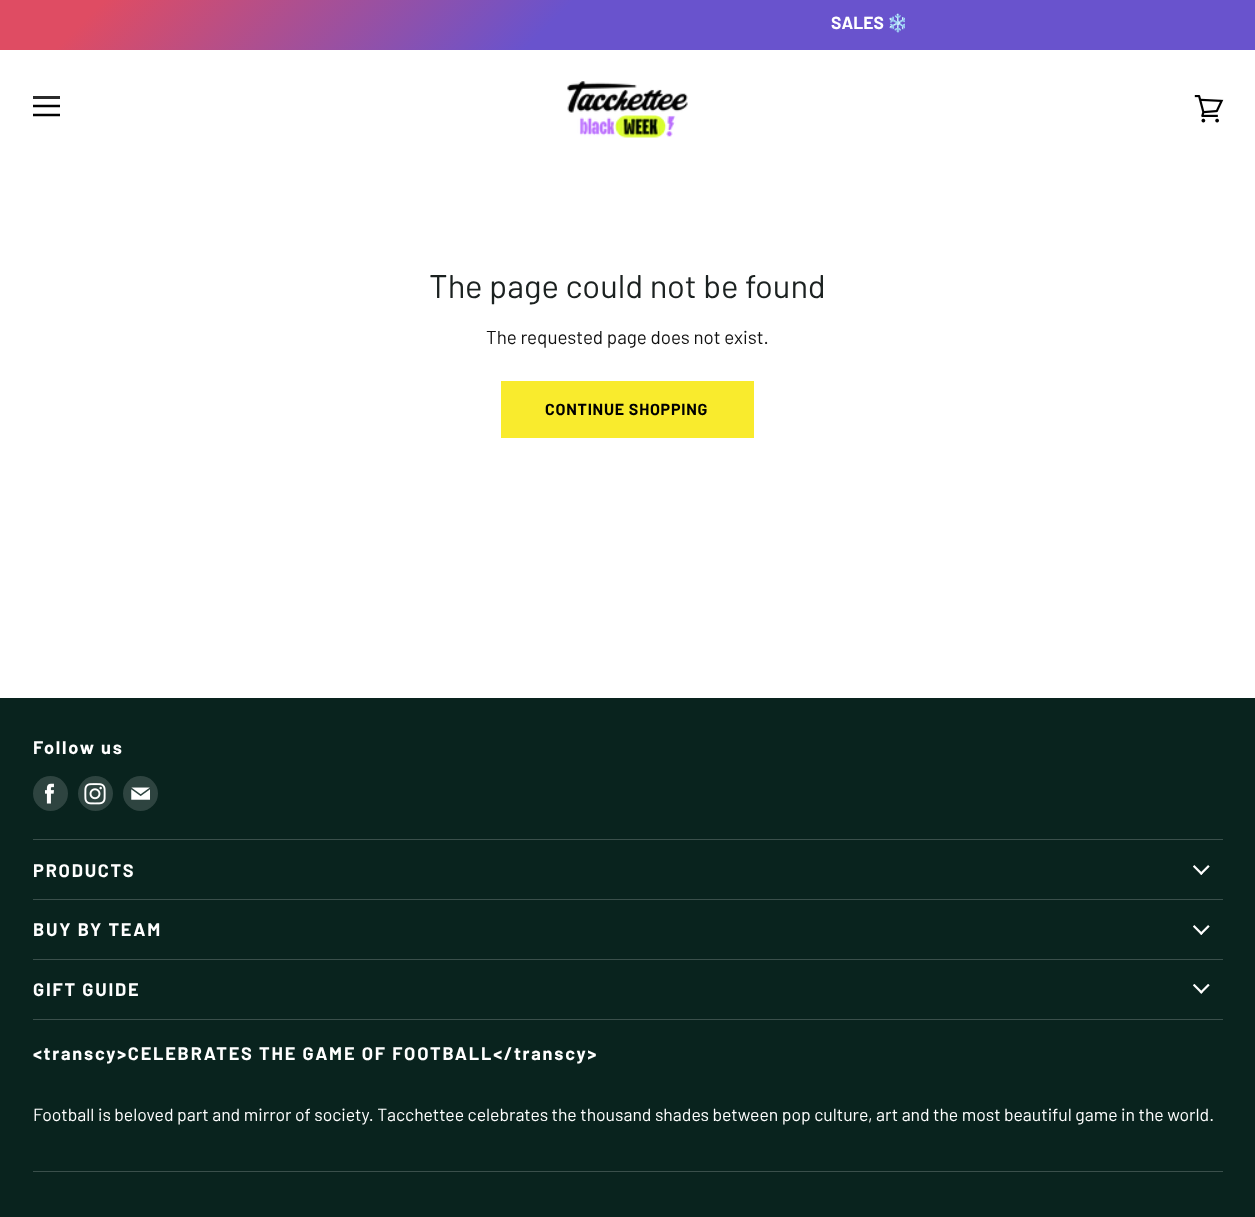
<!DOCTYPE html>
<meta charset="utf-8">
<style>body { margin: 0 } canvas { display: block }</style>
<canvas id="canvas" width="1255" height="1217"></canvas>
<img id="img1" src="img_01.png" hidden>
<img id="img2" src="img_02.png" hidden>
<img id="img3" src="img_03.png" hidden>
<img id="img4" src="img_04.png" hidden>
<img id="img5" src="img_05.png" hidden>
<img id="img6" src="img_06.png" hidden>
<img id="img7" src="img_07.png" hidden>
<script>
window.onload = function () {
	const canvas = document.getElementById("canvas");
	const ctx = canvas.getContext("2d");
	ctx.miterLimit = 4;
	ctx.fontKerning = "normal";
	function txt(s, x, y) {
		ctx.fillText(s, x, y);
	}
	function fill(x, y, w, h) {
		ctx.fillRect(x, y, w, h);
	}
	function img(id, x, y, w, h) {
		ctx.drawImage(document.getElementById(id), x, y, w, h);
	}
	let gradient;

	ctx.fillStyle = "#FFFFFF";
	fill(0, 0, 1255, 1217);
	gradient = ctx.createLinearGradient(301, -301, 954, 351);
	gradient.addColorStop(0.08, "#DF4C63");
	gradient.addColorStop(0.44, "#6953CD");
	ctx.fillStyle = gradient;
	fill(0, 0, 1255, 50);
	ctx.fillStyle = "#2B2B2B";
	fill(33, 96, 27, 3);
	ctx.save();
	ctx.beginPath();
	ctx.rect(33, 95, 27, 23);
	ctx.clip();
	ctx.beginPath();
	ctx.moveTo(59, 106);
	ctx.lineTo(34, 106);
	ctx.moveTo(59, 115);
	ctx.lineTo(34, 115);
	ctx.strokeStyle = "#000000";
	ctx.lineWidth = 2.5;
	ctx.lineCap = "square";
	ctx.lineJoin = "round";
	ctx.stroke();
	ctx.restore();
	img("img1", 567, 81, 121, 57);
	img("img2", 1194, 95, 30, 28);
	ctx.fillStyle = "#F9EB2D";
	fill(501, 381, 253, 57);
	ctx.fillStyle = "#09231E";
	fill(0, 698, 1255, 519);
	ctx.fillStyle = "#3A4F4B";
	fill(33, 839, 1190, 1);
	ctx.fillStyle = "#2E4440";
	ctx.beginPath();
	ctx.arc(50.5, 793.5, 17.5, 0, Math.PI * 2);
	ctx.fill();
	img("img3", 45, 783, 9, 21);
	ctx.beginPath();
	ctx.arc(95.5, 793.5, 17.5, 0, Math.PI * 2);
	ctx.fill();
	img("img4", 84, 783, 22, 22);
	ctx.beginPath();
	ctx.arc(140.5, 793.5, 17.5, 0, Math.PI * 2);
	ctx.fill();
	img("img5", 131, 787, 19, 13);
	ctx.fillStyle = "#3A4F4B";
	fill(33, 899, 1190, 1);
	img("img6", 1193, 865, 17, 10);
	fill(33, 959, 1190, 1);
	img("img6", 1193, 925, 17, 10);
	fill(33, 1019, 1190, 1);
	img("img7", 1193, 984, 17, 10);
	fill(33, 1171, 1190, 1);
	ctx.font = "bold 17.5px Barlow";
	ctx.fillStyle = "#FFFFFF";
	txt("SALES", 831, 29);
	ctx.save();
	ctx.beginPath();
	ctx.rect(350, 13, 555, 21);
	ctx.clip();
	ctx.font = "17.5px Noto Color Emoji";
	txt("❄️", 887, 29);
	ctx.restore();
	ctx.font = "32.75px Barlow";
	ctx.fillStyle = "#1B2120";
	txt("The page could not be found", 429, 298);
	ctx.font = "18.75px Barlow";
	ctx.fillStyle = "#111111";
	txt("The requested page does not exist.", 486, 344);
	ctx.letterSpacing = "0.75px";
	ctx.font = "bold 16px Barlow";
	ctx.fillStyle = "#000000";
	txt("CONTINUE SHOPPING", 545, 415);
	ctx.letterSpacing = "1.8px";
	ctx.font = "bold 18.15px Barlow";
	ctx.fillStyle = "#FFFFFF";
	txt("Follow us", 33, 754);
	txt("PRODUCTS", 33, 877);
	txt("BUY BY TEAM", 33, 936);
	txt("GIFT GUIDE", 33, 996);
	txt("<transcy>CELEBRATES THE GAME OF FOOTBALL<\/transcy>", 33, 1060);
	ctx.letterSpacing = "0px";
	ctx.font = "17.58px Barlow";
	txt("Football is beloved part and mirror of society. Tacchettee celebrates the thousand shades between pop culture, art and the most beautiful game in the world.", 33, 1121);
};
</script>
